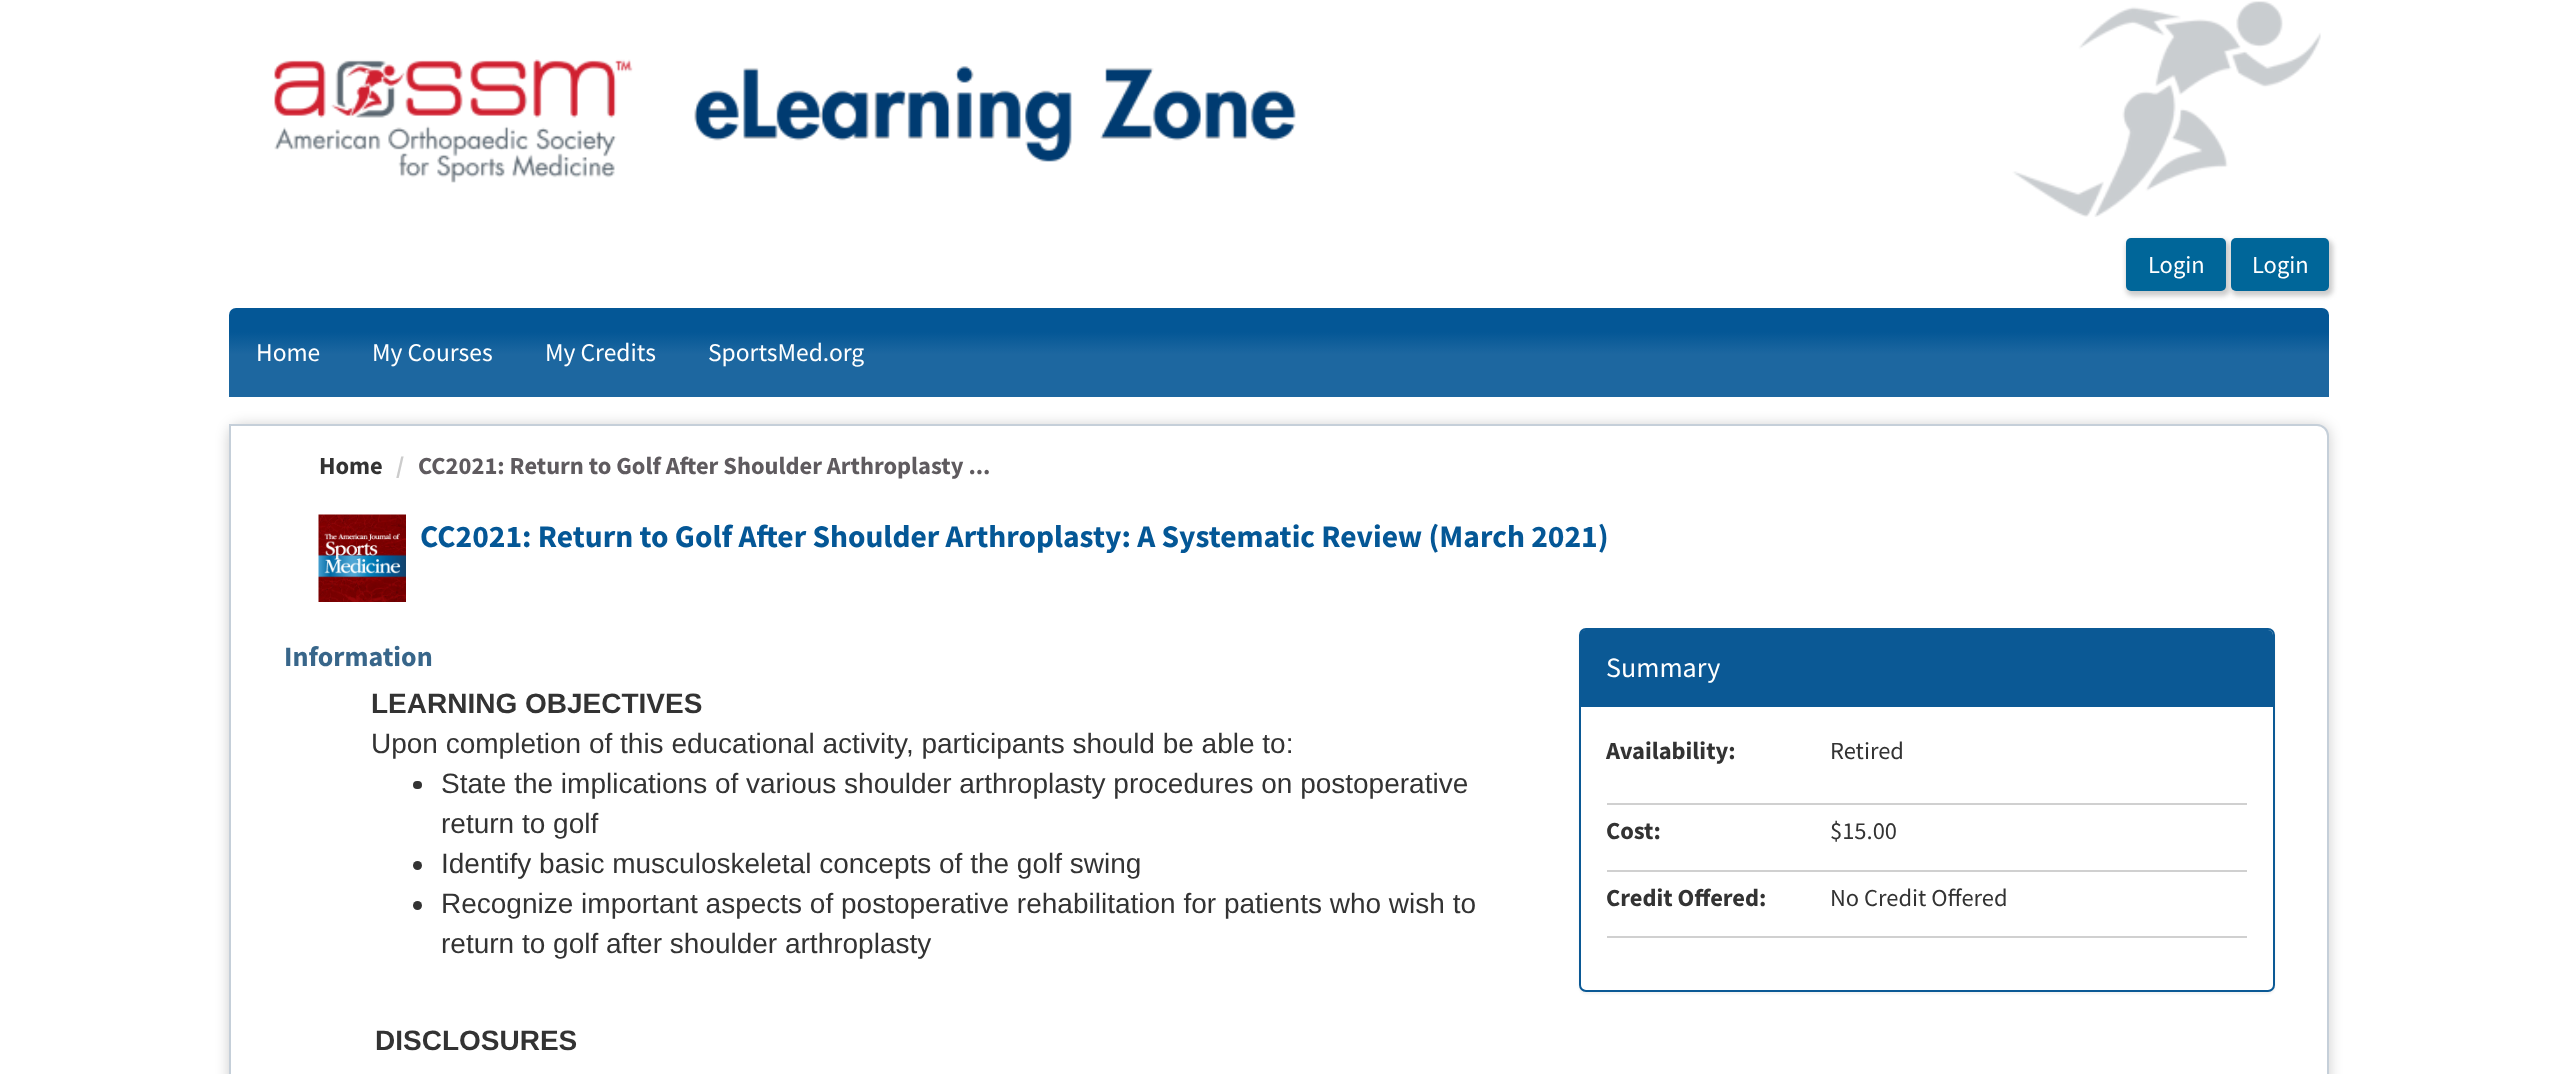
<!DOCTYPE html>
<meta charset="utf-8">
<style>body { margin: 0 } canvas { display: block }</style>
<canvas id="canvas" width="2558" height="1074"></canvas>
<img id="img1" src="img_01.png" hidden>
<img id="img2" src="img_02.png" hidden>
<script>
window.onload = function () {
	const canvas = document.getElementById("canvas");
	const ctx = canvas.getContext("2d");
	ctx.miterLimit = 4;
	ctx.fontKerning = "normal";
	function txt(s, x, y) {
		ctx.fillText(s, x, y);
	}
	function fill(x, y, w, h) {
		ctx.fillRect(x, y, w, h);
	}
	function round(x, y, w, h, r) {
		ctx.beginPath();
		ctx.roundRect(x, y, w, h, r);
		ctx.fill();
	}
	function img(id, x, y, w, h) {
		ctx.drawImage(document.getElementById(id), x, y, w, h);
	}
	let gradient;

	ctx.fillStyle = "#FFFFFF";
	fill(0, 0, 2558, 1074);
	img("img1", 274, 1, 2047, 216);
	ctx.fillStyle = "#CCCCCC";
	ctx.filter = "blur(2.5px)";
	ctx.beginPath();
	ctx.roundRect(2126, 240, 104, 56, 7);
	ctx.fill();
	ctx.filter = "none";
	ctx.fillStyle = "#006699";
	round(2126, 238, 100, 53, 5);
	ctx.fillStyle = "#CCCCCC";
	ctx.filter = "blur(2.5px)";
	ctx.beginPath();
	ctx.roundRect(2231, 240, 102, 56, 7);
	ctx.fill();
	ctx.filter = "none";
	ctx.fillStyle = "#006699";
	round(2231, 238, 98, 53, 5);
	gradient = ctx.createLinearGradient(229, 397, 229, 308);
	gradient.addColorStop(0.48, "#1D67A0");
	gradient.addColorStop(0.73, "#045796");
	ctx.fillStyle = gradient;
	ctx.beginPath();
	ctx.roundRect(229, 308, 2100, 89, [7, 7, 0, 0]);
	ctx.fill();
	ctx.fillStyle = "rgba(0, 0, 0, 0.2)";
	ctx.filter = "blur(7px)";
	ctx.beginPath();
	ctx.roundRect(229, 425, 2100, 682, 12);
	ctx.fill();
	ctx.filter = "none";
	ctx.fillStyle = "#FFFFFF";
	ctx.beginPath();
	ctx.moveTo(230, 425);
	ctx.lineTo(2317, 425);
	ctx.bezierCurveTo(2323, 425, 2328, 430, 2328, 436);
	ctx.lineTo(2328, 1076);
	ctx.bezierCurveTo(2328, 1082, 2323, 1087, 2317, 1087);
	ctx.lineTo(230, 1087);
	ctx.closePath();
	ctx.fill();
	ctx.strokeStyle = "#C5CFD9";
	ctx.lineWidth = 2;
	ctx.stroke();
	img("img2", 318, 514, 88, 88);
	ctx.fillStyle = "#333333";
	round(413, 781, 9, 8, 4);
	ctx.beginPath();
	ctx.arc(417.5, 865.5, 4.5, 0, Math.PI * 2);
	ctx.fill();
	ctx.beginPath();
	ctx.arc(417.5, 905.5, 4.5, 0, Math.PI * 2);
	ctx.fill();
	ctx.fillStyle = "rgba(0, 0, 0, 0.05)";
	ctx.filter = "blur(1px)";
	ctx.beginPath();
	ctx.roundRect(1579, 630, 696, 364, 7);
	ctx.fill();
	ctx.filter = "none";
	ctx.fillStyle = "#FFFFFF";
	ctx.beginPath();
	ctx.roundRect(1580, 629, 694, 362, 6);
	ctx.fill();
	ctx.strokeStyle = "#0B5995";
	ctx.stroke();
	ctx.fillStyle = "#0B5995";
	ctx.beginPath();
	ctx.roundRect(1580, 630, 693, 77, [5, 5, 0, 0]);
	ctx.fill();
	ctx.fillStyle = "#D0D0D0";
	fill(1607, 803, 640, 2);
	fill(1607, 870, 640, 2);
	fill(1607, 936, 640, 2);
	ctx.font = "24.5px Source Sans Pro";
	ctx.fillStyle = "#FFFFFF";
	txt("Login", 2148, 273);
	txt("Login", 2252, 273);
	ctx.font = "25.5px Source Sans Pro";
	txt("Home", 256, 361);
	txt("My Courses", 372, 361);
	txt("My Credits", 545, 361);
	txt("SportsMed.org", 708, 361);
	ctx.font = "bold 24.5px Source Sans Pro";
	ctx.fillStyle = "#333333";
	txt("Home", 319, 474);
	ctx.fillStyle = "#CCCCCC";
	txt("/", 396, 474);
	ctx.fillStyle = "#5F5B5F";
	txt("CC2021: Return to Golf After Shoulder Arthroplasty ...", 418, 474);
	ctx.font = "bold 31.5px Source Sans Pro";
	ctx.fillStyle = "#045796";
	txt("CC2021: Return to Golf After Shoulder Arthroplasty: A Systematic Review (March 2021)", 420, 547);
	ctx.font = "bold 28px Source Sans Pro";
	ctx.fillStyle = "#38668A";
	txt("Information", 284, 666);
	ctx.font = "bold 28px Liberation Sans";
	ctx.fillStyle = "#333333";
	txt("LEARNING OBJECTIVES", 371, 713);
	ctx.font = "28px Liberation Sans";
	txt("Upon completion of this educational activity, participants should be able to:", 371, 753);
	txt("State the implications of various shoulder arthroplasty procedures on postoperative", 441, 793);
	txt("return to golf", 441, 833);
	txt("Identify basic musculoskeletal concepts of the golf swing", 441, 873);
	txt("Recognize important aspects of postoperative rehabilitation for patients who wish to", 441, 913);
	txt("return to golf after shoulder arthroplasty", 441, 953);
	ctx.font = "bold 28px Liberation Sans";
	txt("DISCLOSURES", 375, 1050);
	ctx.font = "28px Source Sans Pro";
	ctx.fillStyle = "#FFFFFF";
	txt("Summary", 1606, 677);
	ctx.font = "bold 24.5px Source Sans Pro";
	ctx.fillStyle = "#333333";
	txt("Availability:", 1606, 759);
	ctx.font = "24.5px Source Sans Pro";
	txt("Retired", 1830, 759);
	ctx.font = "bold 24.5px Source Sans Pro";
	txt("Cost:", 1606, 839);
	ctx.font = "24.5px Source Sans Pro";
	txt("$15.00", 1830, 839);
	ctx.font = "bold 24.5px Source Sans Pro";
	txt("Credit Offered:", 1606, 906);
	ctx.font = "24.5px Source Sans Pro";
	txt("No Credit Offered", 1830, 906);
};
</script>
